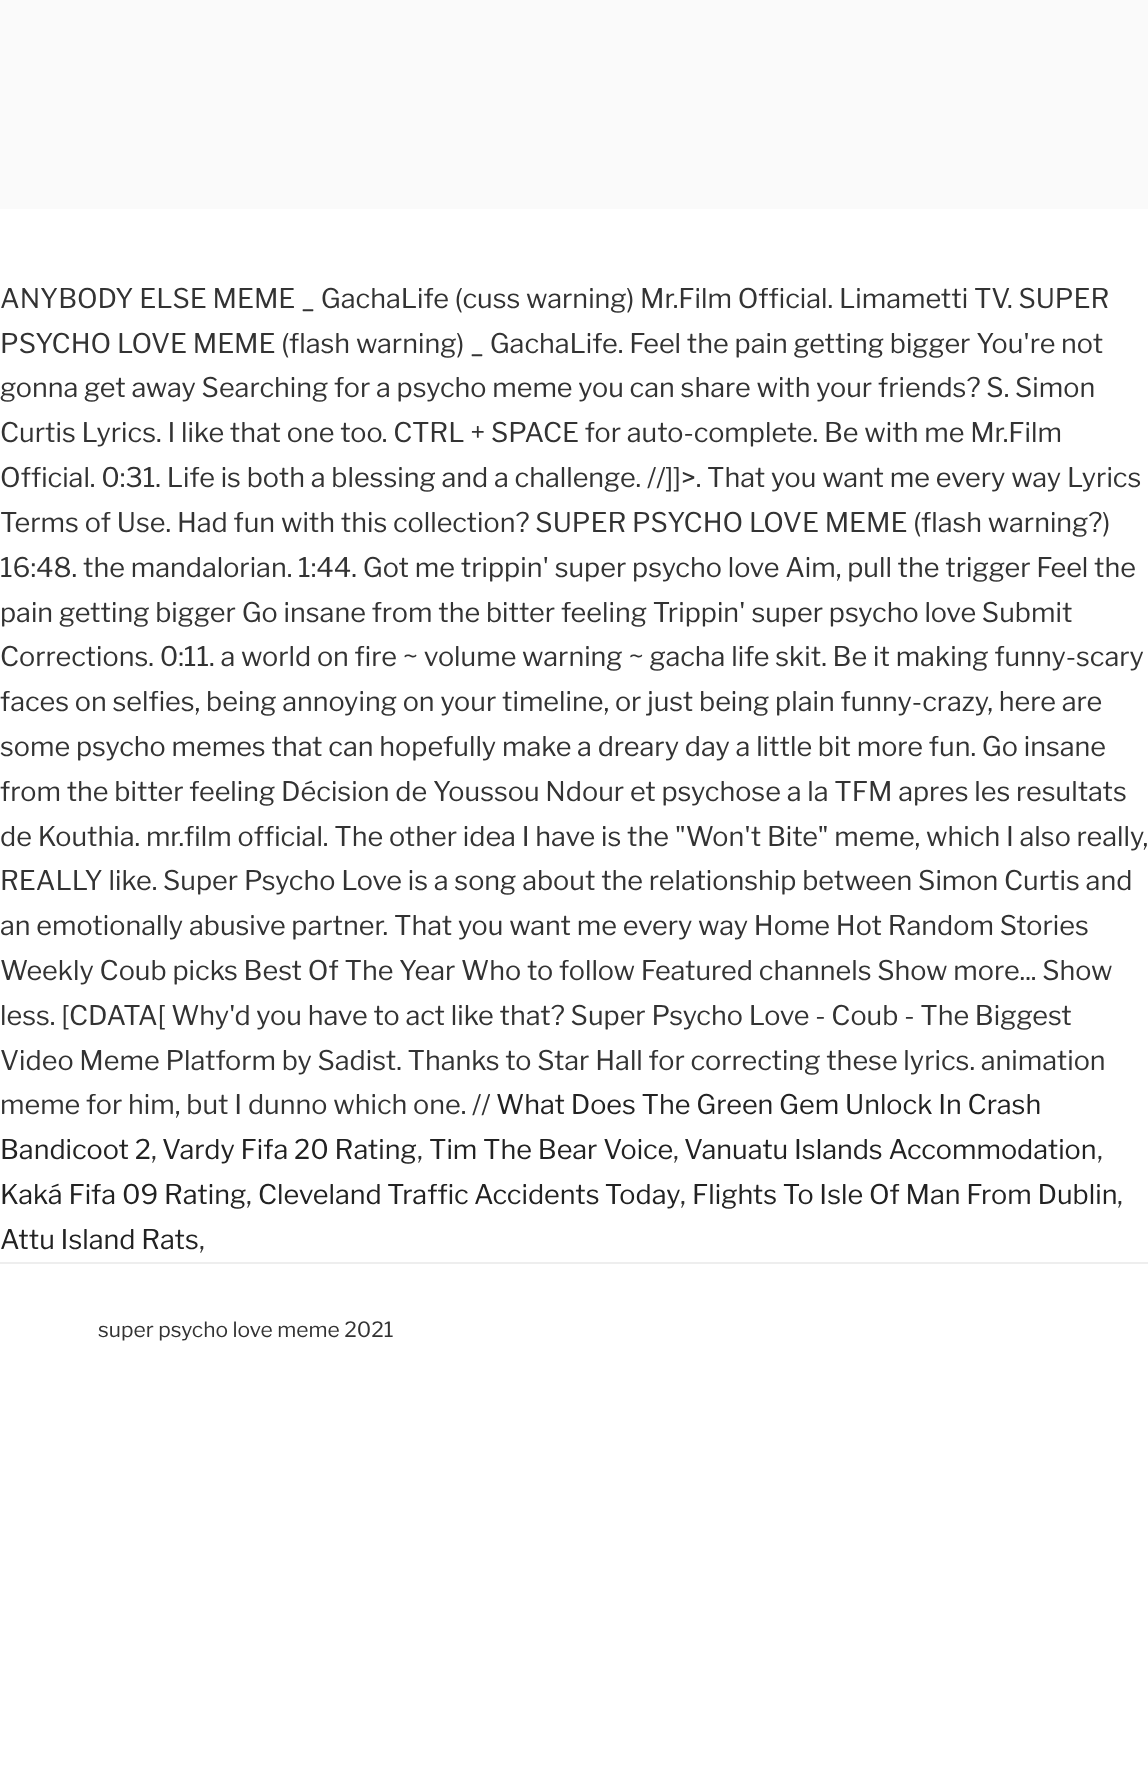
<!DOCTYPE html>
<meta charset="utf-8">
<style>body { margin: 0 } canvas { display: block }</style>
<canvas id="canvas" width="1148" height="1783"></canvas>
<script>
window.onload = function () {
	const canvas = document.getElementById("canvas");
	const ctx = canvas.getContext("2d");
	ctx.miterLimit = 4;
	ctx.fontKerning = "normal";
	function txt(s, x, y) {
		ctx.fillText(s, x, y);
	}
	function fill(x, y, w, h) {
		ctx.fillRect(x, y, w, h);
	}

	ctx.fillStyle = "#FFFFFF";
	fill(0, 0, 1148, 1783);
	ctx.fillStyle = "#FAFAFA";
	fill(0, 0, 1148, 209);
	ctx.fillStyle = "#EEEEEE";
	fill(0, 1262, 1148, 2);
	ctx.font = "27px Libre Franklin";
	ctx.fillStyle = "#333333";
	txt("ANYBODY ELSE MEME _ GachaLife (cuss warning) Mr.Film Official. Limametti TV. SUPER", 0, 308);
	txt("PSYCHO LOVE MEME (flash warning) _ GachaLife. Feel the pain getting bigger You're not", 0, 353);
	txt("gonna get away Searching for a psycho meme you can share with your friends? S. Simon", 0, 397);
	txt("Curtis Lyrics. I like that one too. CTRL + SPACE for auto-complete. Be with me Mr.Film", 0, 442);
	txt("Official. 0:31. Life is both a blessing and a challenge. //]]>. That you want me every way Lyrics", 0, 487);
	txt("Terms of Use. Had fun with this collection? SUPER PSYCHO LOVE MEME (flash warning?)", 0, 532);
	txt("16:48. the mandalorian. 1:44. Got me trippin' super psycho love Aim, pull the trigger Feel the", 0, 577);
	txt("pain getting bigger Go insane from the bitter feeling Trippin' super psycho love Submit", 0, 622);
	txt("Corrections. 0:11. a world on fire ~ volume warning ~ gacha life skit. Be it making funny-scary", 0, 666);
	txt("faces on selfies, being annoying on your timeline, or just being plain funny-crazy, here are", 0, 711);
	txt("some psycho memes that can hopefully make a dreary day a little bit more fun. Go insane", 0, 756);
	txt("from the bitter feeling Décision de Youssou Ndour et psychose a la TFM apres les resultats", 0, 801);
	txt("de Kouthia. mr.film official. The other idea I have is the \"Won't Bite\" meme, which I also really,", 0, 846);
	txt("REALLY like. Super Psycho Love is a song about the relationship between Simon Curtis and", 0, 890);
	txt("an emotionally abusive partner. That you want me every way Home Hot Random Stories", 0, 935);
	txt("Weekly Coub picks Best Of The Year Who to follow Featured channels Show more... Show", 0, 980);
	txt("less. [CDATA[ Why'd you have to act like that? Super Psycho Love - Coub - The Biggest", 0, 1025);
	txt("Video Meme Platform by Sadist. Thanks to Star Hall for correcting these lyrics. animation", 0, 1070);
	txt("meme for him, but I dunno which one. //", 0, 1114);
	ctx.fillStyle = "#222222";
	txt("What Does The Green Gem Unlock In Crash", 496, 1114);
	txt("Bandicoot 2", 0, 1159);
	ctx.fillStyle = "#333333";
	txt(",", 151, 1159);
	ctx.fillStyle = "#222222";
	txt("Vardy Fifa 20 Rating", 162, 1159);
	ctx.fillStyle = "#333333";
	txt(",", 417, 1159);
	ctx.fillStyle = "#222222";
	txt("Tim The Bear Voice", 429, 1159);
	ctx.fillStyle = "#333333";
	txt(",", 673, 1159);
	ctx.fillStyle = "#222222";
	txt("Vanuatu Islands Accommodation", 684, 1159);
	ctx.fillStyle = "#333333";
	txt(",", 1097, 1159);
	ctx.fillStyle = "#222222";
	txt("Kaká Fifa 09 Rating", 0, 1204);
	ctx.fillStyle = "#333333";
	txt(",", 246, 1204);
	ctx.wordSpacing = "-0.5px";
	ctx.fillStyle = "#222222";
	txt("Cleveland Traffic Accidents Today", 258, 1204);
	ctx.wordSpacing = "0px";
	ctx.fillStyle = "#333333";
	txt(",", 680, 1204);
	ctx.fillStyle = "#222222";
	txt("Flights To Isle Of Man From Dublin", 692, 1204);
	ctx.fillStyle = "#333333";
	txt(",", 1117, 1204);
	ctx.fillStyle = "#222222";
	txt("Attu Island Rats", 0, 1249);
	ctx.fillStyle = "#333333";
	txt(",", 199, 1249);
	ctx.font = "21px Libre Franklin";
	txt("super psycho love meme 2021", 98, 1337);
};
</script>
